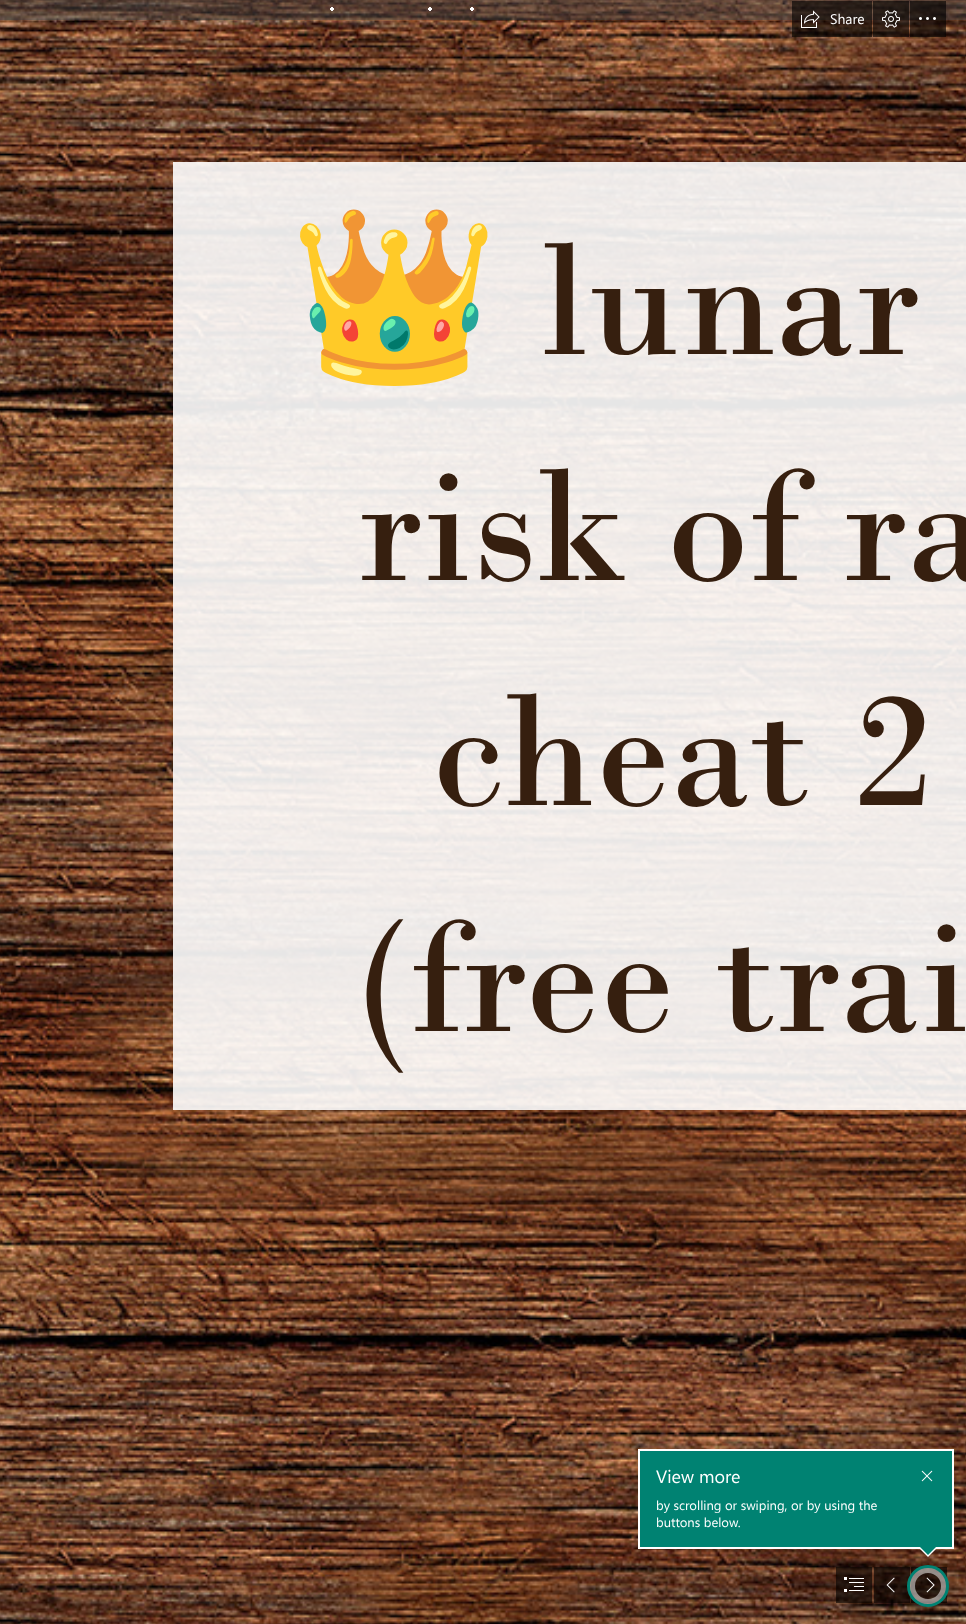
<!DOCTYPE html>
<meta charset="utf-8">
<style>body { margin: 0 } canvas { display: block }</style>
<canvas id="canvas" width="966" height="1624"></canvas>
<img id="img1" src="img_05.png" hidden>
<img id="img2" src="img_01.png" hidden>
<img id="img3" src="img_02.png" hidden>
<img id="img4" src="img_03.png" hidden>
<img id="img5" src="img_04.png" hidden>
<img id="img6" src="img_06.png" hidden>
<img id="img7" src="img_09.png" hidden>
<img id="img8" src="img_07.png" hidden>
<img id="img9" src="img_08.png" hidden>
<script>
window.onload = function () {
	const canvas = document.getElementById("canvas");
	const ctx = canvas.getContext("2d");
	ctx.miterLimit = 4;
	ctx.fontKerning = "normal";
	function txt(s, x, y) {
		ctx.fillText(s, x, y);
	}
	function fill(x, y, w, h) {
		ctx.fillRect(x, y, w, h);
	}
	function img(id, x, y, w, h) {
		ctx.drawImage(document.getElementById(id), x, y, w, h);
	}

	ctx.fillStyle = "#FFFFFF";
	fill(0, 0, 966, 1624);
	img("img1", 0, 0, 966, 1624);
	ctx.fillStyle = "rgba(64, 64, 64, 0.5)";
	fill(0, 0, 966, 20);
	ctx.fillStyle = "rgba(0, 0, 0, 0.6)";
	fill(792, 1, 80, 36);
	img("img2", 801, 10, 19, 18);
	fill(873, 1, 36, 36);
	img("img3", 882, 10, 18, 18);
	fill(910, 1, 36, 36);
	img("img4", 919, 17, 17, 3);
	img("img5", 330, 7, 144, 4);
	ctx.fillStyle = "rgba(255, 255, 255, 0.9)";
	fill(173, 162, 793, 948);
	ctx.fillStyle = "#008272";
	ctx.beginPath();
	ctx.rect(639, 1450, 314, 98);
	ctx.fill();
	ctx.strokeStyle = "#FFFFFF";
	ctx.lineWidth = 2;
	ctx.stroke();
	img("img6", 921, 1470, 12, 12);
	ctx.fillStyle = "#FFFFFF";
	ctx.beginPath();
	ctx.moveTo(918, 1547);
	ctx.lineTo(938, 1547);
	ctx.lineTo(928, 1557);
	ctx.closePath();
	ctx.fill();
	ctx.fillStyle = "#008272";
	ctx.beginPath();
	ctx.moveTo(920, 1547);
	ctx.lineTo(936, 1547);
	ctx.lineTo(928, 1555);
	ctx.closePath();
	ctx.fill();
	ctx.fillStyle = "rgba(0, 0, 0, 0.6)";
	fill(874, 1567, 36, 36);
	fill(911, 1567, 36, 36);
	img("img7", 926, 1577, 9, 16);
	ctx.beginPath();
	ctx.arc(928, 1586, 16.5, 0, Math.PI * 2);
	ctx.strokeStyle = "rgba(255, 255, 255, 0.5)";
	ctx.lineWidth = 7;
	ctx.stroke();
	ctx.beginPath();
	ctx.arc(928, 1586, 19.5, 0, Math.PI * 2);
	ctx.strokeStyle = "#008272";
	ctx.lineWidth = 3;
	ctx.stroke();
	fill(836, 1567, 36, 36);
	img("img8", 844, 1577, 20, 15);
	img("img9", 886, 1577, 9, 16);
	ctx.font = "14px Segoe UI";
	ctx.fillStyle = "#FFFFFF";
	txt("Share", 830, 24);
	ctx.font = "169px Noto Color Emoji";
	ctx.fillStyle = "#361F0F";
	txt("👑", 289, 354);
	ctx.font = "169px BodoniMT";
	txt("lunar", 541, 354);
	txt("risk of ra", 358, 580);
	txt("cheat 2", 432, 805);
	txt("(free trai", 356, 1031);
	ctx.font = "18px Segoe UI";
	ctx.fillStyle = "#FFFFFF";
	txt("View more", 656, 1483);
	ctx.font = "13px Segoe UI";
	txt("by scrolling or swiping, or by using the", 656, 1510);
	txt("buttons below.", 656, 1527);
};
</script>
